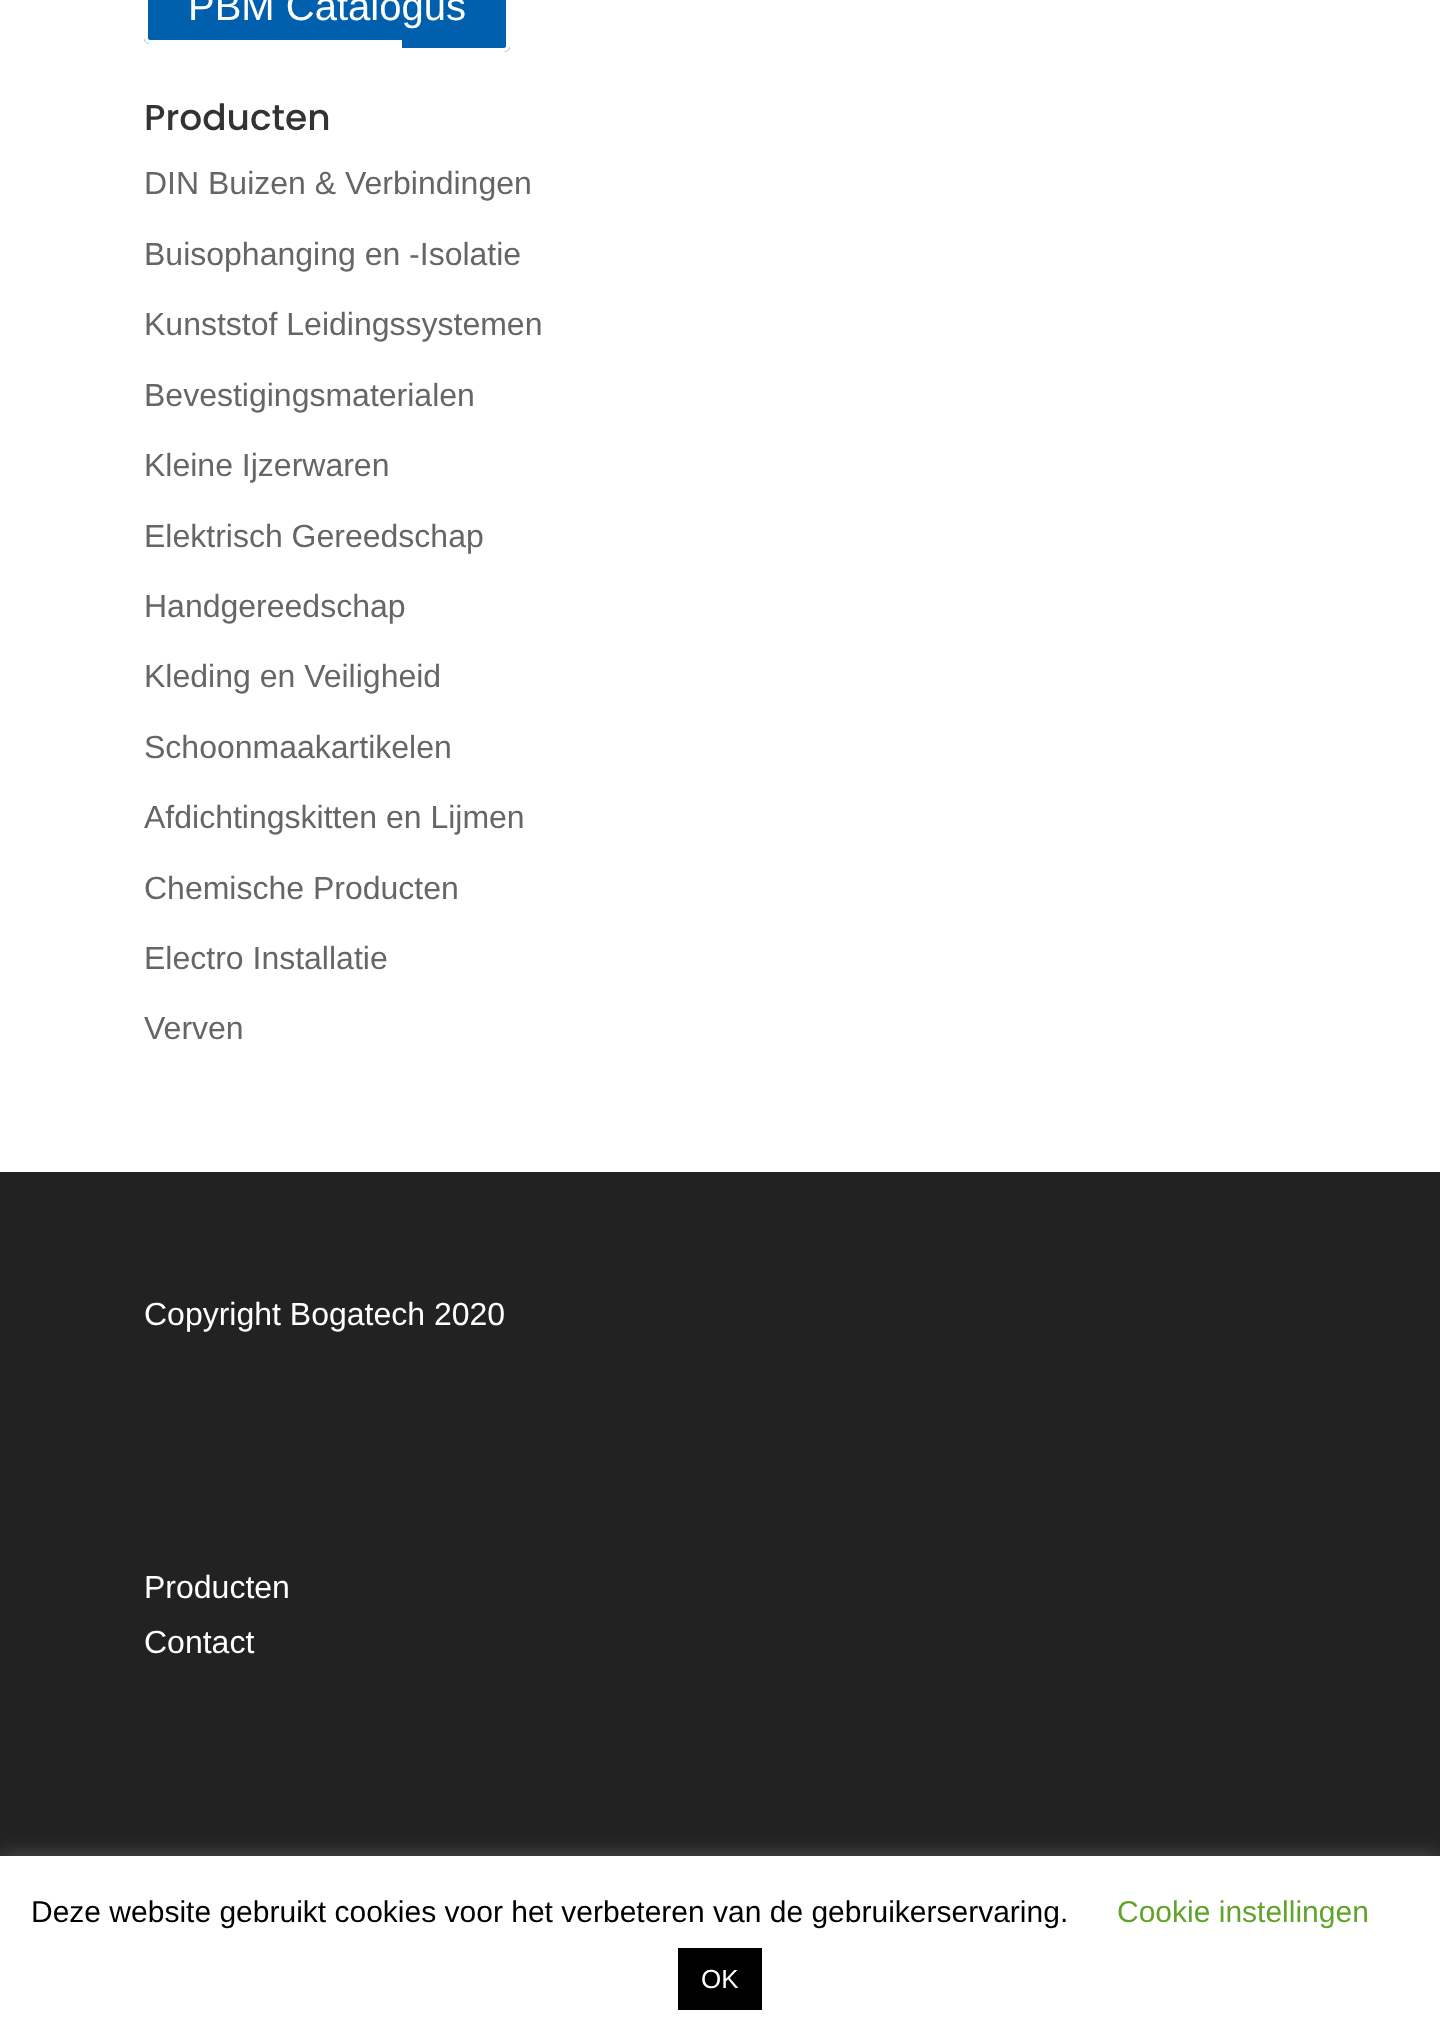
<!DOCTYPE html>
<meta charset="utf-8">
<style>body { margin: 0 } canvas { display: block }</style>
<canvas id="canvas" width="1440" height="2043"></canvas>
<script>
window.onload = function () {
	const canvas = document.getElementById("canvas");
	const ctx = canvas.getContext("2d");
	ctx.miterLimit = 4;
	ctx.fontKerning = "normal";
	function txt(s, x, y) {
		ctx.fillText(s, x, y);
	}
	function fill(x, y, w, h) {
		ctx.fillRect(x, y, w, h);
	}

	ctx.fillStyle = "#FFFFFF";
	fill(0, 0, 1440, 2043);
	ctx.fillStyle = "#0160AE";
	ctx.beginPath();
	ctx.moveTo(150, -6);
	ctx.lineTo(466, -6);
	ctx.lineTo(466, 44);
	ctx.lineTo(150, 44);
	ctx.bezierCurveTo(146.5, 44, 144, 41.5, 144, 38);
	ctx.lineTo(144, 0);
	ctx.bezierCurveTo(144, -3.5, 146.5, -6, 150, -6);
	ctx.closePath();
	ctx.fill();
	ctx.fillStyle = "#FFFFFF";
	ctx.beginPath();
	ctx.moveTo(150, -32);
	ctx.lineTo(466, -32);
	ctx.lineTo(466, 44);
	ctx.lineTo(150, 44);
	ctx.bezierCurveTo(147, 44, 144, 41, 144, 38);
	ctx.lineTo(144, -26);
	ctx.bezierCurveTo(144, -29, 147, -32, 150, -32);
	ctx.closePath();
	ctx.moveTo(150, -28);
	ctx.lineTo(466, -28);
	ctx.lineTo(466, 40);
	ctx.lineTo(150, 40);
	ctx.bezierCurveTo(149, 40, 148, 39, 148, 38);
	ctx.lineTo(148, -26);
	ctx.bezierCurveTo(148, -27, 149, -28, 150, -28);
	ctx.closePath();
	ctx.fill("evenodd");
	ctx.fillStyle = "#0160AE";
	ctx.beginPath();
	ctx.moveTo(402, -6);
	ctx.lineTo(504, -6);
	ctx.bezierCurveTo(507.5, -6, 510, -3.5, 510, 0);
	ctx.lineTo(510, 46);
	ctx.bezierCurveTo(510, 49.5, 507.5, 52, 504, 52);
	ctx.lineTo(402, 52);
	ctx.closePath();
	ctx.fill();
	ctx.fillStyle = "#FFFFFF";
	ctx.beginPath();
	ctx.moveTo(402, -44);
	ctx.lineTo(504, -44);
	ctx.bezierCurveTo(507, -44, 510, -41, 510, -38);
	ctx.lineTo(510, 46);
	ctx.bezierCurveTo(510, 49, 507, 52, 504, 52);
	ctx.lineTo(402, 52);
	ctx.closePath();
	ctx.moveTo(402, -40);
	ctx.lineTo(504, -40);
	ctx.bezierCurveTo(505, -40, 506, -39, 506, -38);
	ctx.lineTo(506, 46);
	ctx.bezierCurveTo(506, 47, 505, 48, 504, 48);
	ctx.lineTo(402, 48);
	ctx.closePath();
	ctx.fill("evenodd");
	ctx.fillStyle = "#222222";
	fill(0, 1172, 1440, 684);
	ctx.fillStyle = "rgba(172, 171, 171, 0.3)";
	ctx.filter = "blur(10px)";
	ctx.beginPath();
	ctx.rect(0, 1854, 1440, 188);
	ctx.fill();
	ctx.filter = "none";
	ctx.fillStyle = "#FFFFFF";
	fill(0, 1856, 1440, 187);
	ctx.fillStyle = "#000000";
	fill(678, 1948, 84, 62);
	ctx.font = "40px Liberation Sans";
	ctx.fillStyle = "#FFFFFF";
	txt("PBM Catalogus", 188, 20);
	ctx.font = "500 36px Poppins";
	ctx.fillStyle = "#333333";
	txt("Producten", 144, 130);
	ctx.font = "32px Liberation Sans";
	ctx.fillStyle = "#666666";
	txt("DIN Buizen & Verbindingen", 144, 194);
	txt("Buisophanging en -Isolatie", 144, 265);
	txt("Kunststof Leidingssystemen", 144, 335);
	txt("Bevestigingsmaterialen", 144, 406);
	txt("Kleine Ijzerwaren", 144, 476);
	txt("Elektrisch Gereedschap", 144, 547);
	txt("Handgereedschap", 144, 617);
	txt("Kleding en Veiligheid", 144, 687);
	txt("Schoonmaakartikelen", 144, 758);
	txt("Afdichtingskitten en Lijmen", 144, 828);
	txt("Chemische Producten", 144, 899);
	txt("Electro Installatie", 144, 969);
	txt("Verven", 144, 1039);
	ctx.fillStyle = "#FFFFFF";
	txt("Copyright Bogatech 2020", 144, 1325);
	txt("Producten", 144, 1598);
	txt("Contact", 144, 1653);
	ctx.font = "30px Liberation Sans";
	ctx.fillStyle = "#000000";
	txt("Deze website gebruikt cookies voor het verbeteren van de gebruikerservaring.", 31, 1922);
	ctx.fillStyle = "#62A329";
	txt("Cookie instellingen", 1117, 1922);
	ctx.font = "26px Liberation Sans";
	ctx.fillStyle = "#FFFFFF";
	txt("OK", 701, 1988);
};
</script>
